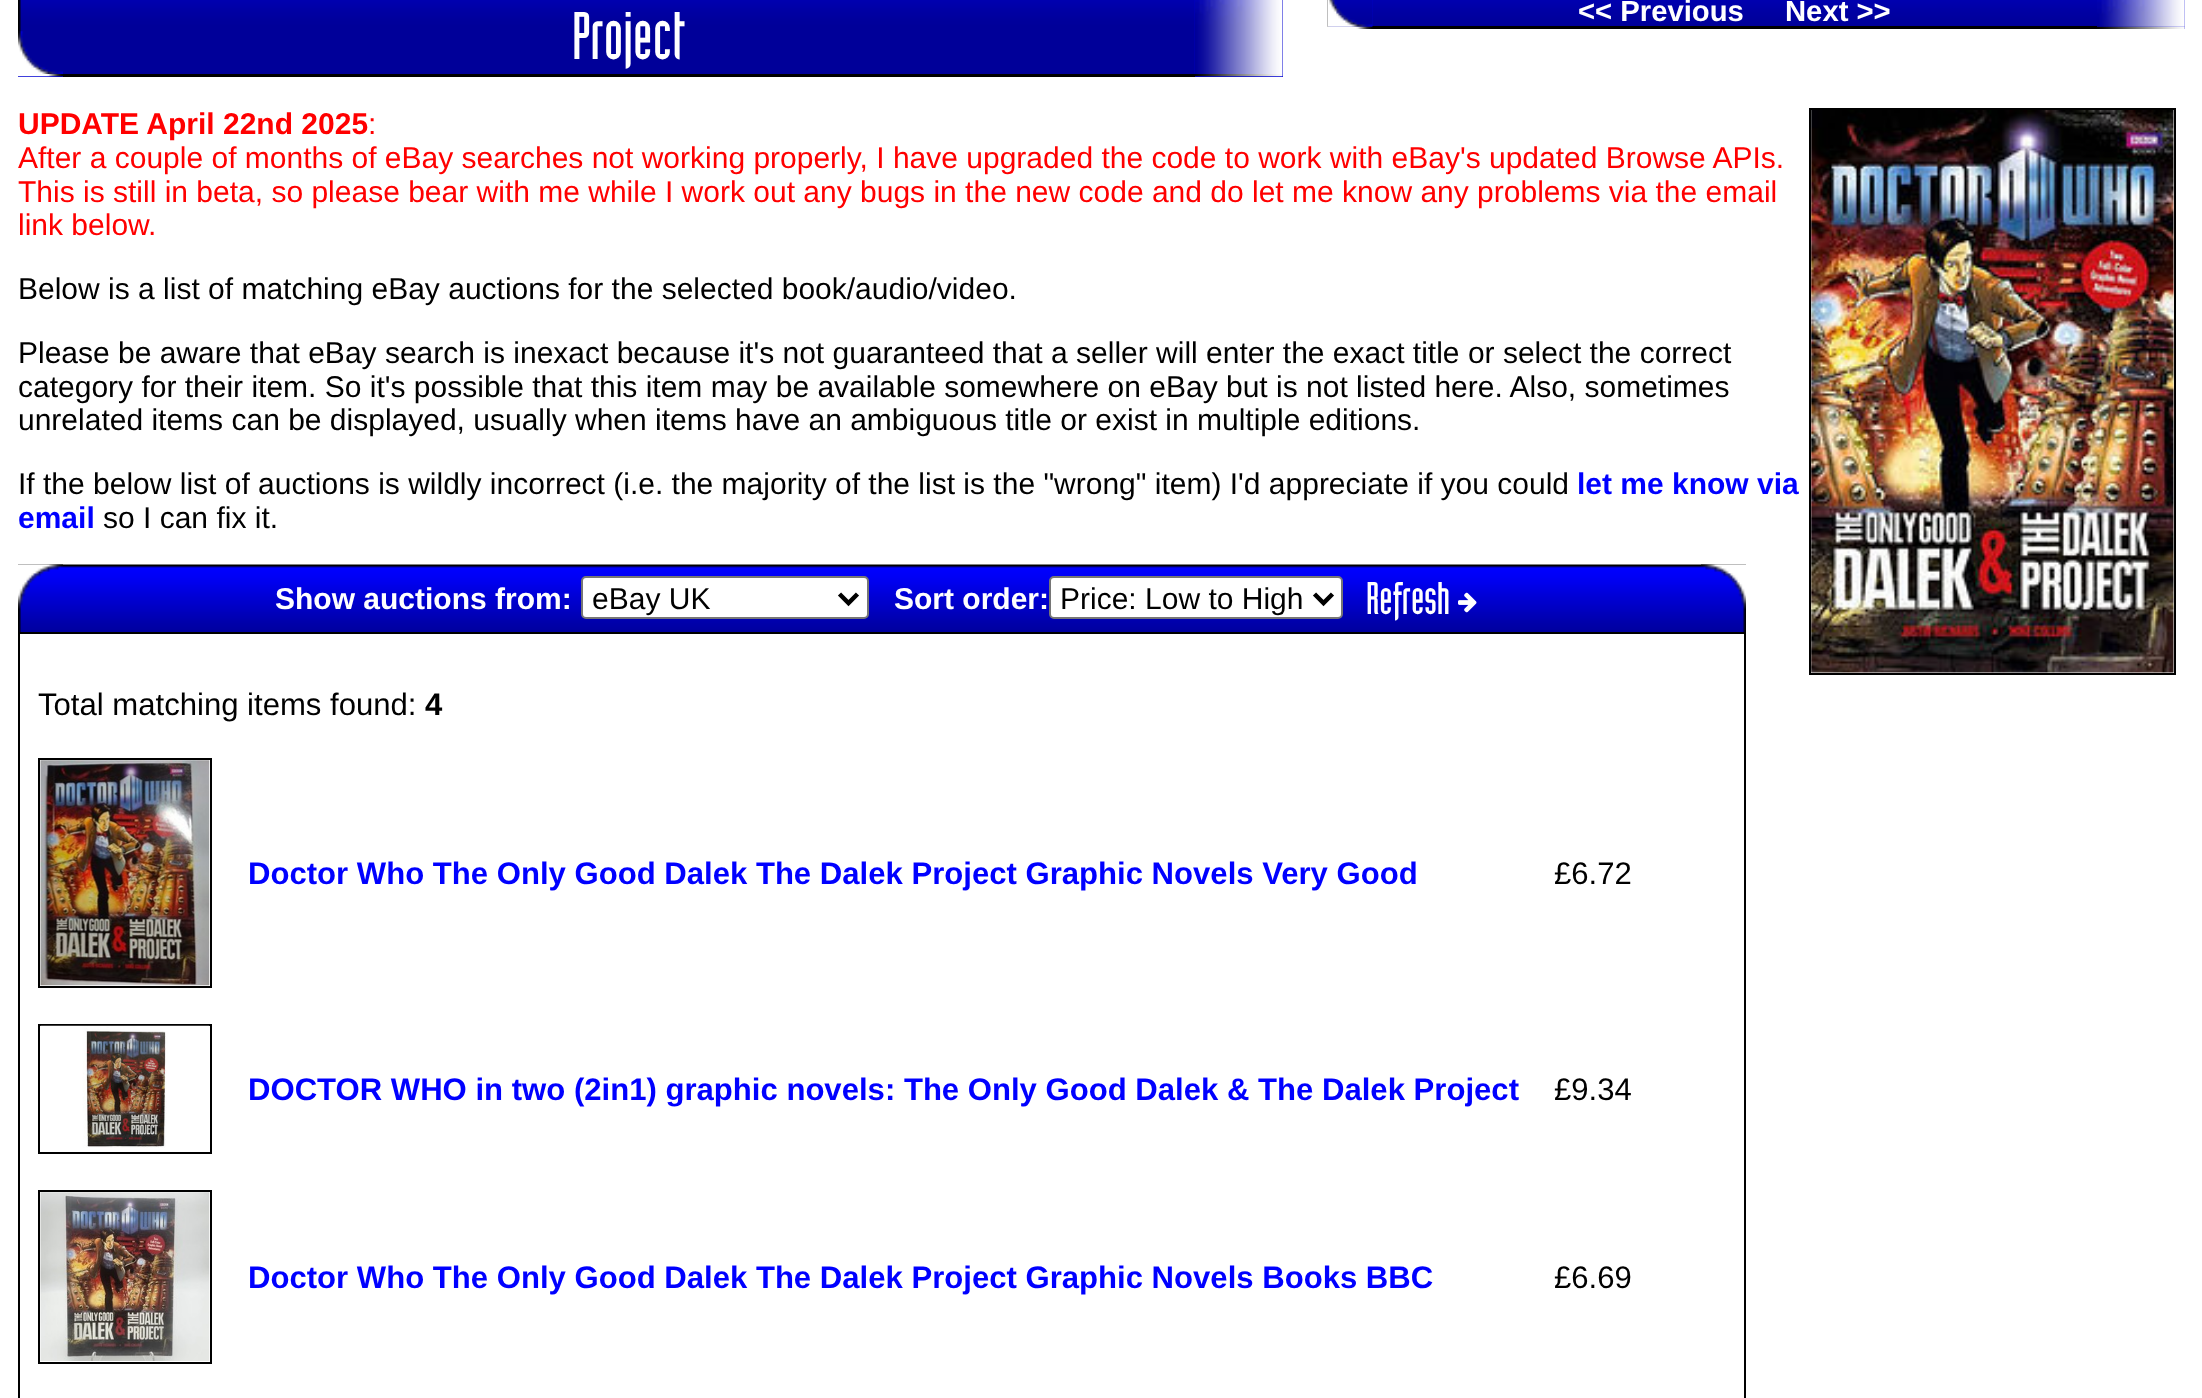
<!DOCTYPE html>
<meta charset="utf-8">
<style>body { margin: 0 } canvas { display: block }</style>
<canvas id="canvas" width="2202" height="1398"></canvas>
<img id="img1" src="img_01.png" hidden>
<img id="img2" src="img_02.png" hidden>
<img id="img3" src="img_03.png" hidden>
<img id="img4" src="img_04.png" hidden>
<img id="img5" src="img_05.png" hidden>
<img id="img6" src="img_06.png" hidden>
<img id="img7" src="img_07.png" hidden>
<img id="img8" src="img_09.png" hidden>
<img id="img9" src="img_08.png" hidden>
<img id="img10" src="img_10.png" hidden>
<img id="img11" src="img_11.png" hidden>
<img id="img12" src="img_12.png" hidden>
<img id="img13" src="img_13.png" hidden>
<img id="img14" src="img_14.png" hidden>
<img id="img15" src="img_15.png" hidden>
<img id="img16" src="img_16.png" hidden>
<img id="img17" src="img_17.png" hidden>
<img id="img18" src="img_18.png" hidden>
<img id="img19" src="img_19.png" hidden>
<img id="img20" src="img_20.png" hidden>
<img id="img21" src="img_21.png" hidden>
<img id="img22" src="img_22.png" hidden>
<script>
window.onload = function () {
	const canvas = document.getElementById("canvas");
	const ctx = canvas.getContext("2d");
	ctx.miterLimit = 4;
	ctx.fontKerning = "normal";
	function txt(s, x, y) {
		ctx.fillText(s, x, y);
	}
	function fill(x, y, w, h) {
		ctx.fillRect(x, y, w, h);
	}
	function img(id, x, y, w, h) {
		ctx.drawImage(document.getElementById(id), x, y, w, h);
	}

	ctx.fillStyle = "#FFFFFF";
	fill(0, 0, 2202, 1398);
	ctx.fillStyle = "#0000D0";
	fill(18, 0, 1265, 77);
	img("img1", 18, 0, 45, 73);
	img("img2", 18, 31, 45, 43);
	img("img3", 63, 0, 1132, 74);
	img("img4", 1195, 0, 88, 74);
	img("img5", 18, 74, 45, 3);
	ctx.fillStyle = "#000000";
	fill(63, 74, 1132, 3);
	img("img6", 1195, 74, 88, 3);
	ctx.fillStyle = "#0000D0";
	fill(1328, 0, 857, 29);
	img("img7", 1327, 0, 46, 27);
	img("img8", 1372, 0, 725, 26);
	ctx.fillStyle = "#000000";
	fill(1372, 26, 725, 3);
	img("img9", 1327, 0, 46, 27);
	img("img10", 2097, 0, 88, 27);
	img("img11", 1327, 26, 46, 3);
	img("img12", 2097, 26, 88, 3);
	ctx.strokeStyle = "#000000";
	ctx.lineWidth = 2;
	ctx.strokeRect(1810, 109, 365, 565);
	img("img13", 1811, 110, 363, 563);
	img("img14", 18, 564, 45, 68);
	img("img15", 18, 564, 45, 45);
	img("img16", 63, 564, 1638, 68);
	ctx.fillStyle = "#FFFFFF";
	ctx.beginPath();
	ctx.roundRect(582, 577, 286, 41, 4);
	ctx.fill();
	ctx.strokeStyle = "#767676";
	ctx.stroke();
	ctx.beginPath();
	ctx.moveTo(839.5, 594);
	ctx.lineTo(848.5, 603);
	ctx.lineTo(857.5, 594);
	ctx.strokeStyle = "#000000";
	ctx.lineWidth = 4.5;
	ctx.stroke();
	ctx.beginPath();
	ctx.roundRect(1050, 577, 292, 41, 4);
	ctx.fill();
	ctx.strokeStyle = "#767676";
	ctx.lineWidth = 2;
	ctx.stroke();
	ctx.beginPath();
	ctx.moveTo(1314.5, 594);
	ctx.lineTo(1323.5, 603);
	ctx.lineTo(1332.5, 594);
	ctx.strokeStyle = "#000000";
	ctx.lineWidth = 4.5;
	ctx.stroke();
	img("img17", 1458, 592, 19, 21);
	img("img18", 1701, 564, 45, 68);
	img("img19", 1701, 564, 45, 45);
	ctx.lineWidth = 2;
	ctx.strokeRect(19, 633, 1726, 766);
	ctx.strokeRect(39, 759, 172, 228);
	img("img20", 40, 760, 170, 226);
	ctx.strokeRect(39, 1025, 172, 128);
	img("img21", 40, 1025, 170, 123);
	ctx.strokeRect(39, 1191, 172, 172);
	img("img22", 40, 1192, 170, 169);
	ctx.font = "66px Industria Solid";
	txt("Project", 572, 59);
	ctx.font = "bold 29.25px Liberation Sans";
	txt("<< Previous", 1578, 21);
	txt("Next >>", 1785, 21);
	ctx.font = "bold 30px Liberation Sans";
	ctx.fillStyle = "#FF0000";
	txt("UPDATE April 22nd 2025", 18, 134);
	ctx.font = "30px Liberation Sans";
	txt(":", 368, 134);
	txt("After a couple of months of eBay searches not working properly, I have upgraded the code to work with eBay's updated Browse APIs.", 18, 168);
	txt("This is still in beta, so please bear with me while I work out any bugs in the new code and do let me know any problems via the email", 18, 202);
	txt("link below.", 18, 235);
	ctx.fillStyle = "#000000";
	txt("Below is a list of matching eBay auctions for the selected book/audio/video.", 18, 299);
	txt("Please be aware that eBay search is inexact because it's not guaranteed that a seller will enter the exact title or select the correct", 18, 363);
	txt("category for their item. So it's possible that this item may be available somewhere on eBay but is not listed here. Also, sometimes", 18, 397);
	txt("unrelated items can be displayed, usually when items have an ambiguous title or exist in multiple editions.", 18, 430);
	txt("If the below list of auctions is wildly incorrect (i.e. the majority of the list is the \"wrong\" item) I'd appreciate if you could", 18, 494);
	ctx.font = "bold 30px Liberation Sans";
	ctx.fillStyle = "#0000FF";
	txt("let me know via", 1577, 494);
	txt("email", 18, 528);
	ctx.font = "30px Liberation Sans";
	ctx.fillStyle = "#000000";
	txt("so I can fix it.", 103, 528);
	ctx.font = "bold 30px Liberation Sans";
	ctx.fillStyle = "#FFFFFF";
	txt("Show auctions from:", 275, 609);
	ctx.font = "30px Liberation Sans";
	ctx.fillStyle = "#000000";
	txt("eBay UK", 592, 609);
	ctx.font = "bold 30px Liberation Sans";
	ctx.fillStyle = "#FFFFFF";
	txt("Sort order:", 894, 609);
	ctx.font = "30px Liberation Sans";
	ctx.fillStyle = "#000000";
	txt("Price: Low to High", 1060, 609);
	ctx.font = "45px Industria Solid";
	ctx.fillStyle = "#FFFFFF";
	txt("Refresh", 1366, 614);
	ctx.font = "31.1px Liberation Sans";
	ctx.fillStyle = "#000000";
	txt("Total matching items found:", 38, 715);
	ctx.font = "bold 31.1px Liberation Sans";
	txt("4", 425, 715);
	ctx.fillStyle = "#0000FF";
	txt("Doctor Who The Only Good Dalek The Dalek Project Graphic Novels Very Good", 248, 884);
	ctx.font = "31.1px Liberation Sans";
	ctx.fillStyle = "#000000";
	txt("£6.72", 1554, 884);
	ctx.font = "bold 31.1px Liberation Sans";
	ctx.fillStyle = "#0000FF";
	txt("DOCTOR WHO in two (2in1) graphic novels: The Only Good Dalek & The Dalek Project", 248, 1100);
	ctx.font = "31.1px Liberation Sans";
	ctx.fillStyle = "#000000";
	txt("£9.34", 1554, 1100);
	ctx.font = "bold 31.1px Liberation Sans";
	ctx.fillStyle = "#0000FF";
	txt("Doctor Who The Only Good Dalek The Dalek Project Graphic Novels Books BBC", 248, 1288);
	ctx.font = "31.1px Liberation Sans";
	ctx.fillStyle = "#000000";
	txt("£6.69", 1554, 1288);
};
</script>
